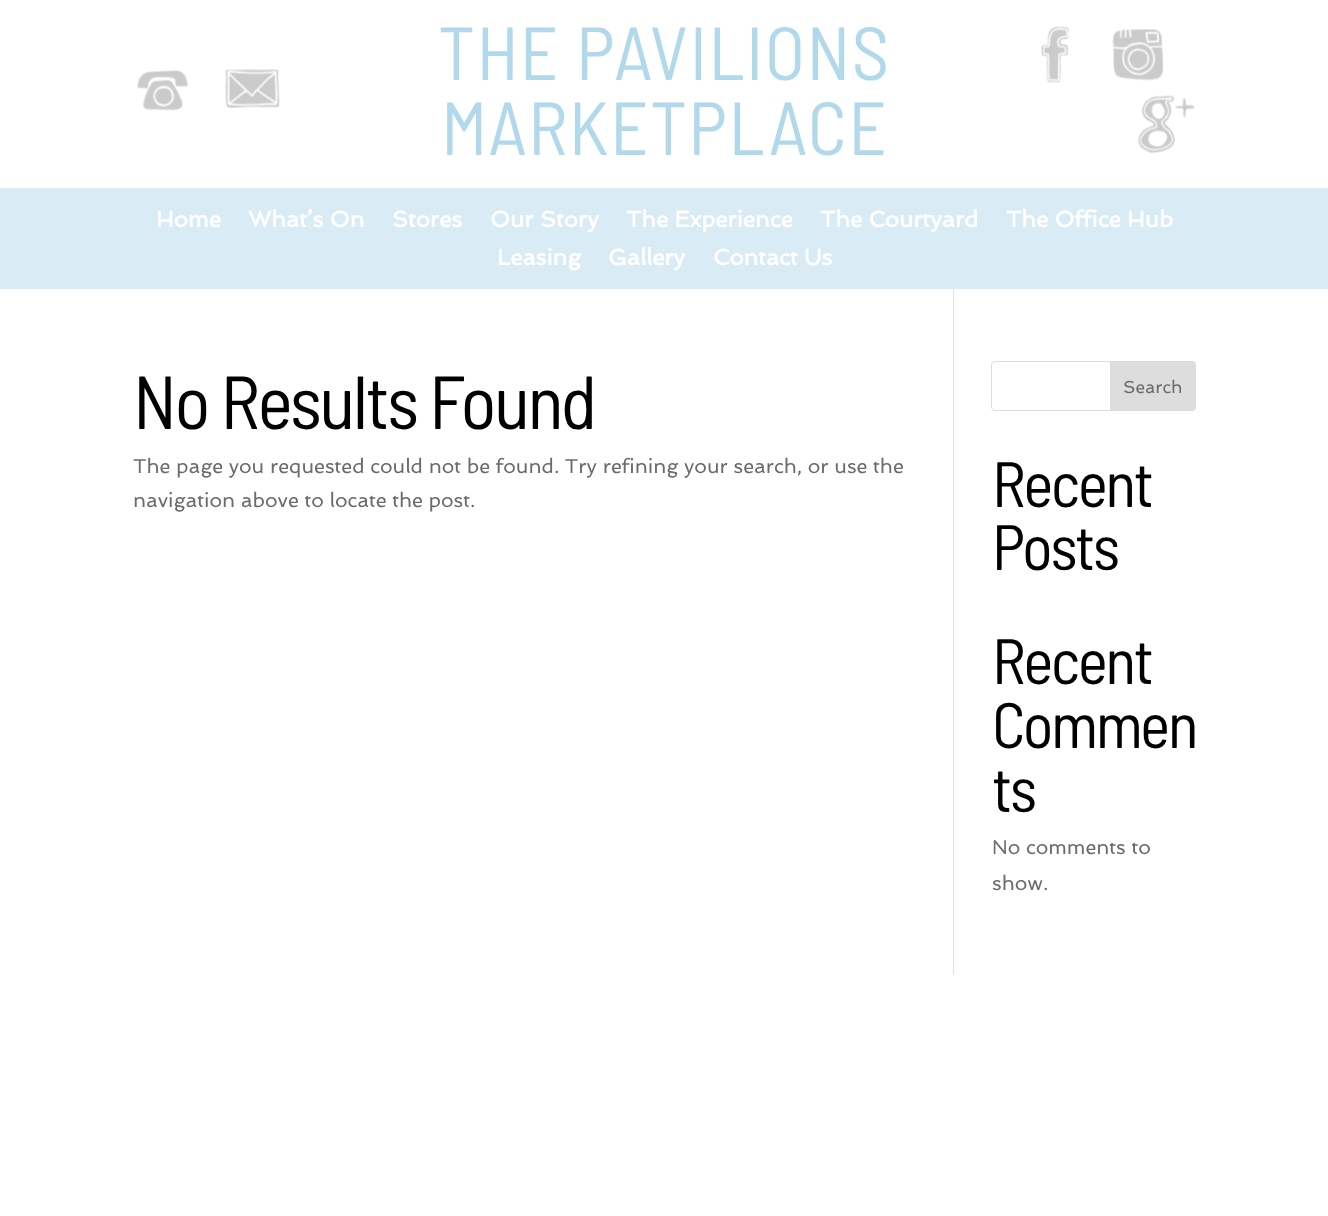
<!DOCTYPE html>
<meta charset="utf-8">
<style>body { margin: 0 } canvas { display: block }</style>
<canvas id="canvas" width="1328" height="1216"></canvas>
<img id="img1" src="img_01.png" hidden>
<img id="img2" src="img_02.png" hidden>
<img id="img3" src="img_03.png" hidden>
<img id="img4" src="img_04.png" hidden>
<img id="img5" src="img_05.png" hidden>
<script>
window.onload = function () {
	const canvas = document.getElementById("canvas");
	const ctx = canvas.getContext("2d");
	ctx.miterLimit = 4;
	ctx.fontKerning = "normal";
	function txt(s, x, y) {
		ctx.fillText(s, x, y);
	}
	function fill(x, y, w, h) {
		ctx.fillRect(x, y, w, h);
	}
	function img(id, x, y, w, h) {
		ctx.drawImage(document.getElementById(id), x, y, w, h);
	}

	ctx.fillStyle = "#FFFFFF";
	fill(0, 0, 1328, 1216);
	img("img1", 137, 70, 51, 41);
	img("img2", 225, 69, 55, 40);
	img("img3", 1041, 26, 28, 57);
	img("img4", 1112, 28, 52, 53);
	img("img5", 1137, 95, 58, 59);
	ctx.fillStyle = "#D9ECF5";
	fill(0, 188, 1328, 101);
	ctx.fillStyle = "#E2E2E2";
	fill(953, 289, 1, 686);
	ctx.beginPath();
	ctx.roundRect(991.5, 361.5, 204, 49, 3.5);
	ctx.strokeStyle = "#DDDDDD";
	ctx.stroke();
	ctx.fillStyle = "#DDDDDD";
	ctx.beginPath();
	ctx.roundRect(1110.5, 361.5, 85, 49, [0, 3.5, 3.5, 0]);
	ctx.fill();
	ctx.stroke();
	ctx.letterSpacing = "1.25px";
	ctx.font = "75px Barlow Semi Condensed";
	ctx.fillStyle = "#B2D9EB";
	txt("THE PAVILIONS", 438, 80);
	txt("MARKETPLACE", 441, 155);
	ctx.letterSpacing = "0px";
	ctx.font = "bold 22.5px Spinnaker";
	ctx.fillStyle = "#FFFFFF";
	txt("Home", 156, 227);
	txt("What’s On", 248, 227);
	txt("Stores", 392, 227);
	txt("Our Story", 490, 227);
	txt("The Experience", 626, 227);
	txt("The Courtyard", 820, 227);
	txt("The Office Hub", 1006, 227);
	txt("Leasing", 497, 265);
	txt("Gallery", 608, 265);
	txt("Contact Us", 713, 265);
	ctx.letterSpacing = "-2.5px";
	ctx.font = "75px Barlow Semi Condensed";
	ctx.fillStyle = "#000000";
	txt("No Results Found", 133, 429);
	ctx.letterSpacing = "0px";
	ctx.font = "20px Spinnaker";
	ctx.fillStyle = "#6B6B6B";
	txt("The page you requested could not be found. Try refining your search, or use the", 133, 473);
	txt("navigation above to locate the post.", 133, 507);
	ctx.font = "17.5px Spinnaker";
	txt("Search", 1123, 393);
	ctx.letterSpacing = "-2.5px";
	ctx.font = "64px Barlow Semi Condensed";
	ctx.fillStyle = "#000000";
	txt("Recent", 992, 507);
	txt("Posts", 992, 570);
	txt("Recent", 992, 684);
	txt("Commen", 992, 748);
	txt("ts", 992, 812);
	ctx.letterSpacing = "0px";
	ctx.font = "20px Spinnaker";
	ctx.fillStyle = "#6B6B6B";
	txt("No comments to", 992, 854);
	txt("show.", 992, 890);
};
</script>
